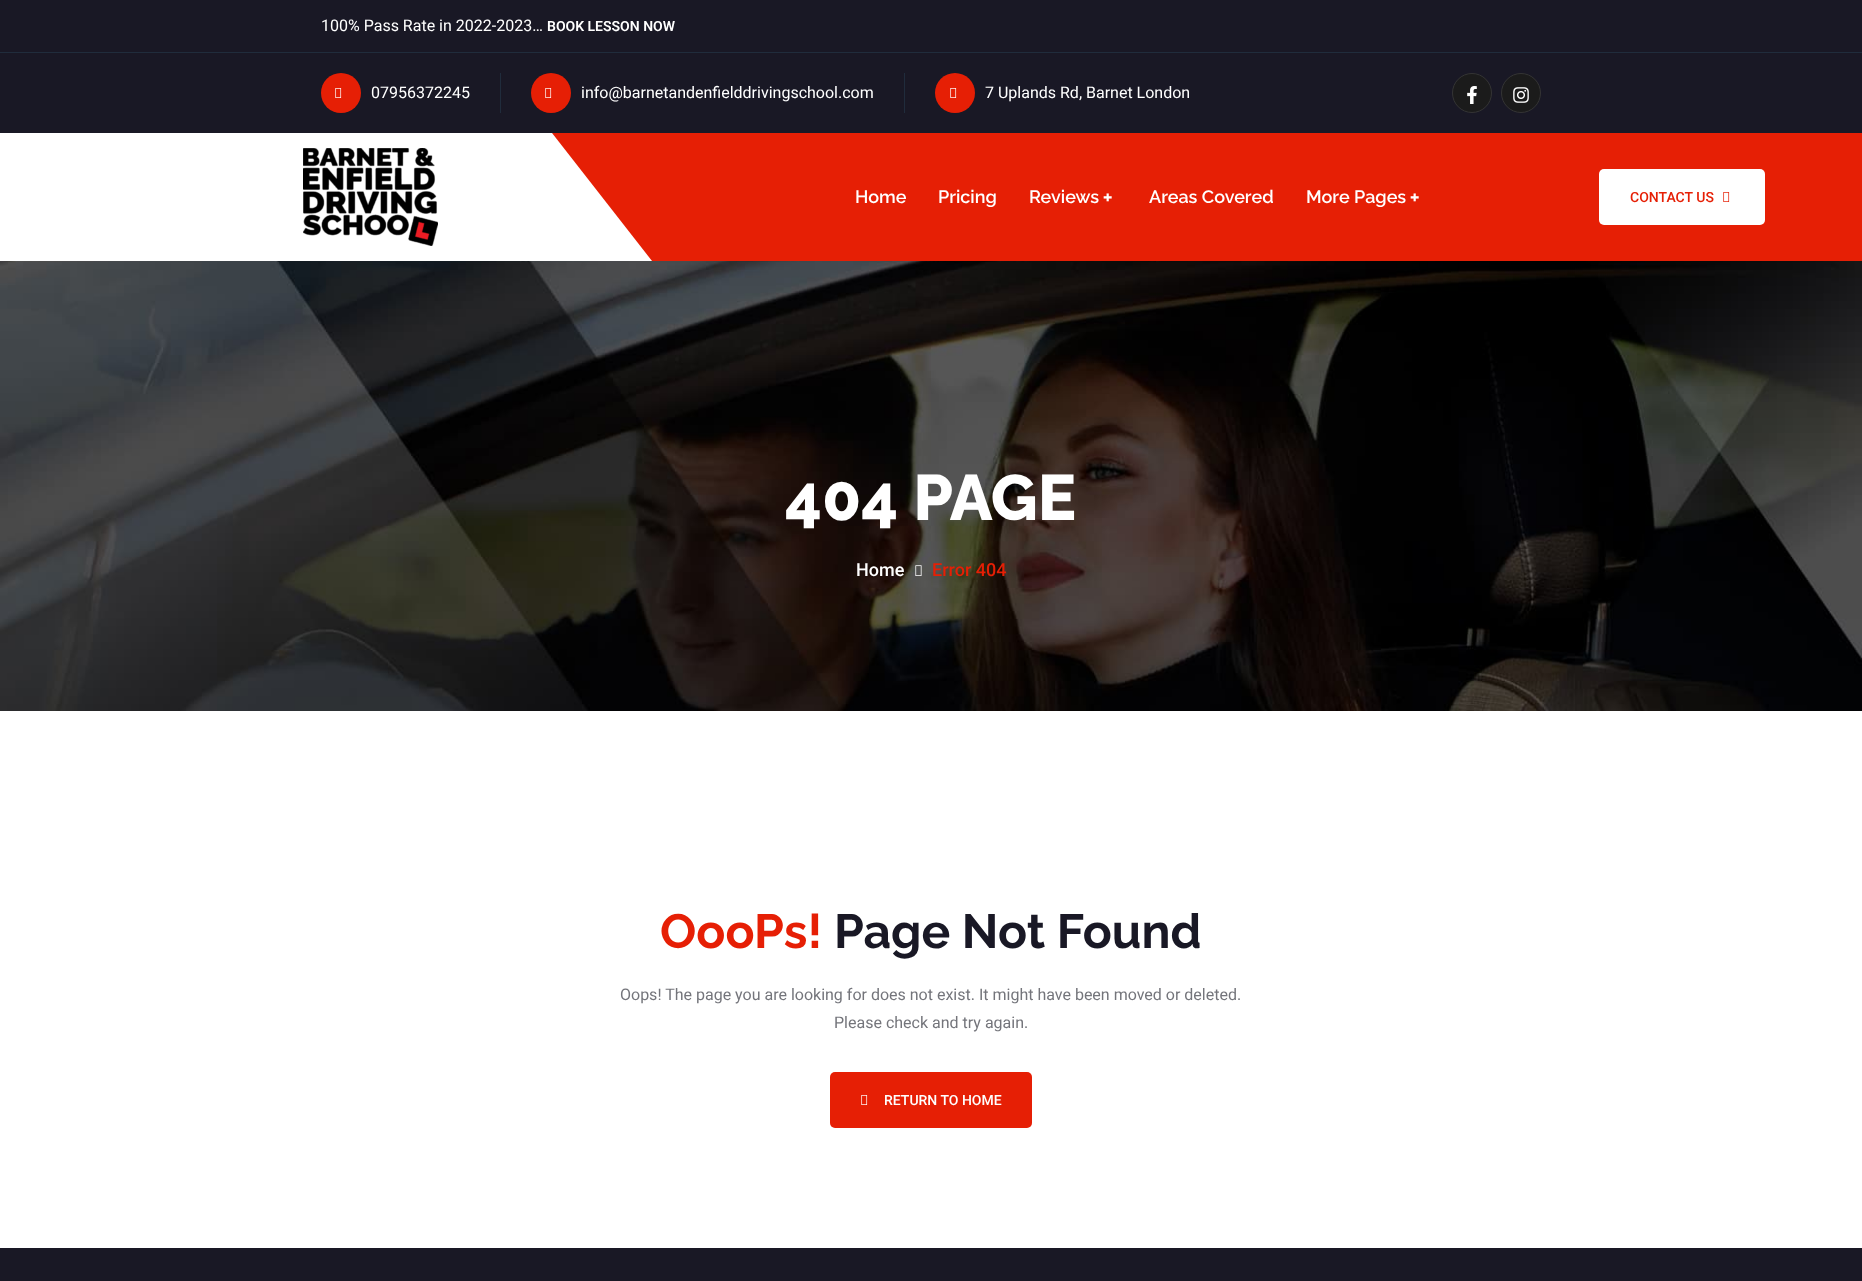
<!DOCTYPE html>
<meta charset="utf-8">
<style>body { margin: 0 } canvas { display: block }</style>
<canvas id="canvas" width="1862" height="1281"></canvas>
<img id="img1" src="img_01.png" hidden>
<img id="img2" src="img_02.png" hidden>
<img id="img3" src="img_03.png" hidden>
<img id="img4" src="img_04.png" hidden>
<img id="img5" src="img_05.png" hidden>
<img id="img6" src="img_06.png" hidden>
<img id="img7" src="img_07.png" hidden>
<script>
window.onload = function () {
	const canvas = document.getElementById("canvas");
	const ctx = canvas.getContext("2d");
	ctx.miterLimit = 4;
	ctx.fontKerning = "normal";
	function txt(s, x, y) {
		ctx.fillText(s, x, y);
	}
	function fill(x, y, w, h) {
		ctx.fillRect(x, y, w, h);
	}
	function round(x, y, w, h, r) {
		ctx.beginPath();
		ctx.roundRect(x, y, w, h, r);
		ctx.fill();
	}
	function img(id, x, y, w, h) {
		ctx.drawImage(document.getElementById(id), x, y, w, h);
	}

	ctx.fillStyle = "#FFFFFF";
	fill(0, 0, 1862, 1281);
	ctx.fillStyle = "#191825";
	fill(0, 0, 1862, 133);
	ctx.fillStyle = "#202C3C";
	fill(0, 52, 1862, 1);
	fill(500, 73, 1, 40);
	ctx.fillStyle = "#E61F05";
	ctx.beginPath();
	ctx.arc(341, 93, 20, 0, Math.PI * 2);
	ctx.fill();
	img("img1", 335, 88, 7, 10);
	ctx.fillStyle = "#202C3C";
	fill(904, 73, 1, 40);
	ctx.fillStyle = "#E61F05";
	ctx.beginPath();
	ctx.arc(551, 93, 20, 0, Math.PI * 2);
	ctx.fill();
	img("img1", 545, 88, 7, 10);
	ctx.beginPath();
	ctx.arc(955, 93, 20, 0, Math.PI * 2);
	ctx.fill();
	img("img1", 950, 88, 7, 10);
	ctx.fillStyle = "#1B1B1B";
	ctx.beginPath();
	ctx.arc(1472, 93, 19.5, 0, Math.PI * 2);
	ctx.fill();
	ctx.strokeStyle = "#343434";
	ctx.stroke();
	img("img2", 1467, 86, 10, 18);
	ctx.beginPath();
	ctx.arc(1521, 93, 19.5, 0, Math.PI * 2);
	ctx.fill();
	ctx.stroke();
	img("img3", 1513, 87, 16, 16);
	ctx.fillStyle = "#E61F05";
	fill(552, 133, 1310, 128);
	ctx.fillStyle = "#FFFFFF";
	ctx.beginPath();
	ctx.moveTo(0, 133);
	ctx.lineTo(0, 261);
	ctx.lineTo(652, 261);
	ctx.lineTo(552, 133);
	ctx.closePath();
	ctx.fill();
	img("img4", 303, 148, 135, 98);
	round(1599, 169, 166, 56, 5);
	img("img5", 1723, 192, 7, 10);
	img("img6", 0, 261, 1862, 450);
	img("img7", 915, 565, 7, 11);
	ctx.fillStyle = "#E61F05";
	round(830, 1072, 202, 56, 5);
	img("img1", 861, 1095, 7, 10);
	ctx.fillStyle = "#191825";
	fill(0, 1248, 1862, 33);
	ctx.font = "16px Roboto";
	ctx.fillStyle = "#FFFFFF";
	txt("100% Pass Rate in 2022-2023…", 321, 31);
	ctx.font = "600 14px Roboto";
	txt("BOOK LESSON NOW", 547, 31);
	ctx.font = "16px Roboto";
	txt("07956372245", 371, 98);
	txt("info@barnetandenfielddrivingschool.com", 581, 98);
	txt("7 Uplands Rd, Barnet London", 985, 98);
	ctx.font = "600 18px Raleway";
	txt("Home", 855, 203);
	txt("Pricing", 938, 203);
	txt("Reviews", 1029, 203);
	ctx.font = "900 16px Noto Sans";
	txt("+", 1103, 203);
	ctx.font = "600 18px Raleway";
	txt("Areas Covered", 1149, 203);
	txt("More Pages", 1306, 203);
	ctx.font = "900 16px Noto Sans";
	txt("+", 1410, 203);
	ctx.font = "500 14px Roboto";
	ctx.fillStyle = "#E61F05";
	txt("CONTACT US", 1630, 202);
	ctx.font = "800 64px Raleway";
	ctx.fillStyle = "#FFFFFF";
	txt("404 PAGE", 785, 520);
	ctx.font = "500 18px Roboto";
	txt("Home", 856, 576);
	ctx.fillStyle = "#E61F05";
	txt("Error 404", 932, 576);
	ctx.font = "bold 48px Raleway";
	txt("OooPs!", 660, 948);
	ctx.fillStyle = "#191825";
	txt("Page Not Found", 834, 948);
	ctx.font = "16px Roboto";
	ctx.fillStyle = "#74757B";
	txt("Oops! The page you are looking for does not exist. It might have been moved or deleted.", 620, 1000);
	txt("Please check and try again.", 834, 1028);
	ctx.font = "500 14px Roboto";
	ctx.fillStyle = "#FFFFFF";
	txt("RETURN TO HOME", 884, 1105);
};
</script>
